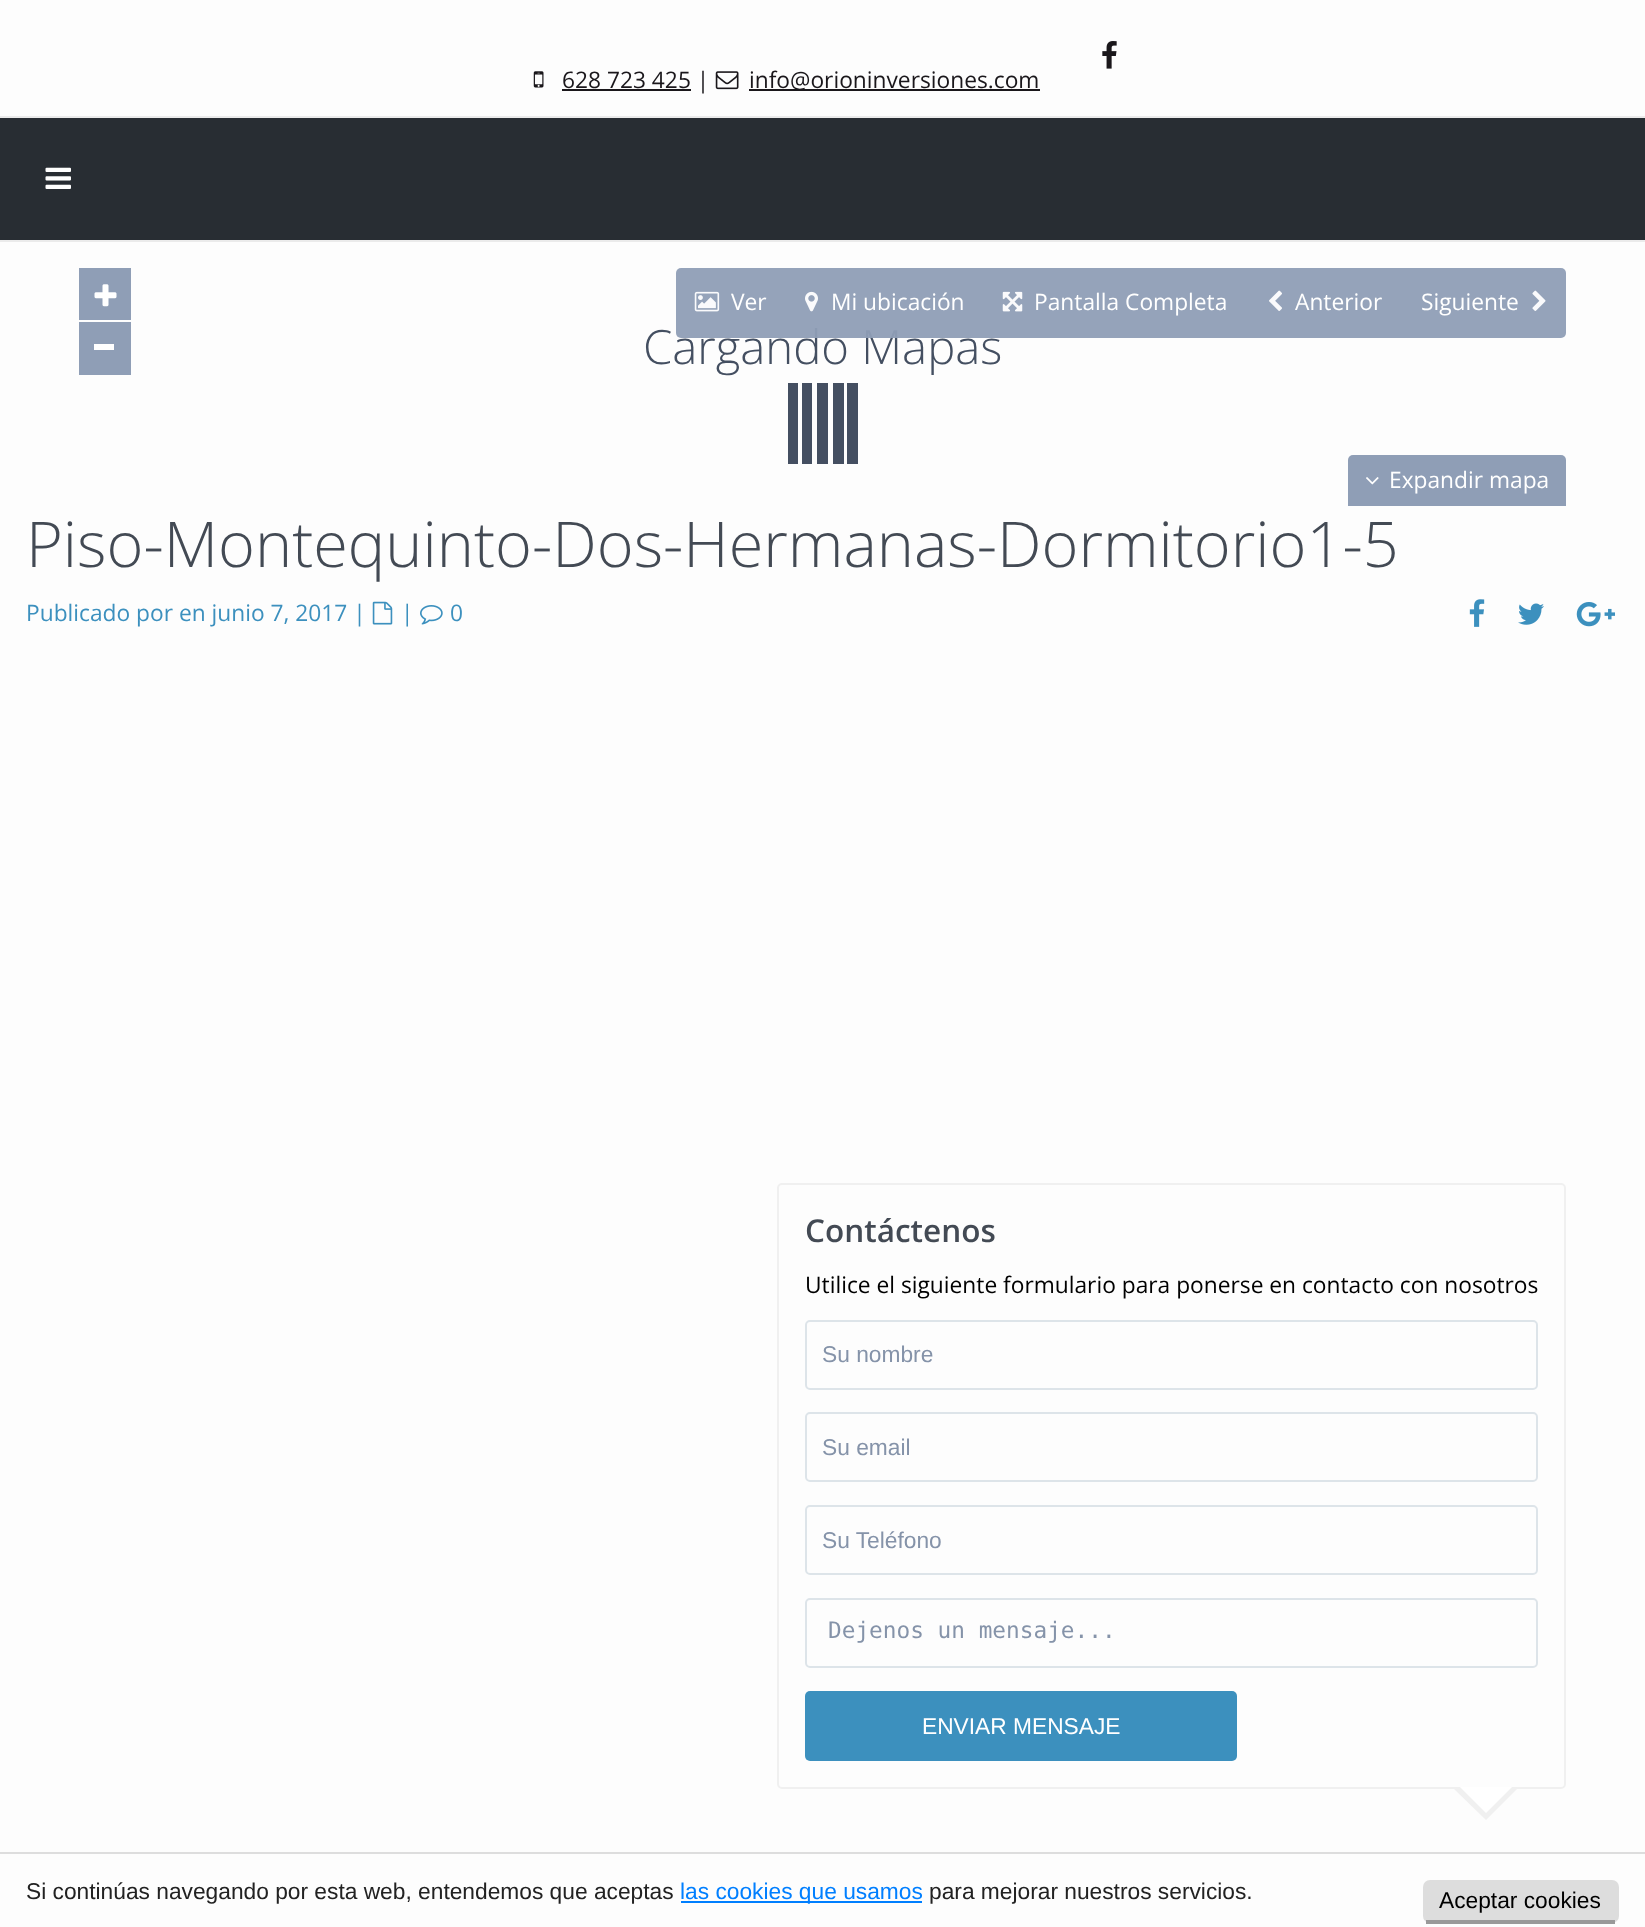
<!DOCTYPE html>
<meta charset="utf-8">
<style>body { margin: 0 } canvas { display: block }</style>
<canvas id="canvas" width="1645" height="1927"></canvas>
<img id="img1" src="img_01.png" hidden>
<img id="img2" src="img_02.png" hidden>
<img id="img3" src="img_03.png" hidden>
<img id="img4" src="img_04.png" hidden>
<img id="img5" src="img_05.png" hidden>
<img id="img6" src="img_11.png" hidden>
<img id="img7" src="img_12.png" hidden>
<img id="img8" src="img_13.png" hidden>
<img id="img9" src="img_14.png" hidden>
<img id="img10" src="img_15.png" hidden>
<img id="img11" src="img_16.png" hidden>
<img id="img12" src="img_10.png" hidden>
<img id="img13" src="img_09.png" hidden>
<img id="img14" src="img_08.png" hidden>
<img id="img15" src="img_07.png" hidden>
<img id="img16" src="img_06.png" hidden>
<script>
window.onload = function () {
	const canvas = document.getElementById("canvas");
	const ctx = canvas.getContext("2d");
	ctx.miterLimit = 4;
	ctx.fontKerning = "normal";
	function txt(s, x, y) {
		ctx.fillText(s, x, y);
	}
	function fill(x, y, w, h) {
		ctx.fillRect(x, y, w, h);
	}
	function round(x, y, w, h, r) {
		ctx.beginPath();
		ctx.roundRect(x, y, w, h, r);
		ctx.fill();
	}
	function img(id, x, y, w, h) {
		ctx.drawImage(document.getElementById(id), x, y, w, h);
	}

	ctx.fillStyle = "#FDFDFD";
	fill(0, 0, 1645, 1927);
	ctx.fillStyle = "#EBEBEB";
	fill(0, 240, 1645, 2);
	fill(0, 116, 1645, 2);
	img("img1", 1102, 41, 15, 28);
	img("img2", 533, 71, 11, 17);
	ctx.fillStyle = "#1A171B";
	fill(562, 89, 129, 2);
	img("img3", 715, 71, 24, 19);
	fill(749, 89, 291, 2);
	ctx.fillStyle = "#282D33";
	fill(0, 118, 1645, 122);
	img("img4", 45, 167, 26, 22);
	ctx.fillStyle = "#8F9EB6";
	fill(79, 268, 52, 52);
	img("img5", 94, 284, 23, 23);
	fill(79, 322, 52, 53);
	ctx.fillStyle = "#FFFFFF";
	fill(94, 344, 20, 6);
	ctx.fillStyle = "#8F9EB6";
	ctx.beginPath();
	ctx.roundRect(1348, 455, 218, 51, [5, 5, 0, 0]);
	ctx.fill();
	img("img6", 1366, 477, 13, 8);
	ctx.fillStyle = "#444F61";
	fill(788, 383, 10, 81);
	fill(802, 383, 10, 81);
	fill(817, 383, 11, 81);
	fill(833, 383, 11, 81);
	fill(847, 383, 11, 81);
	img("img7", 372, 601, 21, 24);
	img("img8", 420, 605, 23, 20);
	img("img9", 1469, 599, 16, 28);
	img("img10", 1518, 603, 26, 22);
	img("img11", 1576, 602, 39, 25);
	ctx.beginPath();
	ctx.roundRect(778, 1184, 787, 604, 4);
	ctx.strokeStyle = "#F0F0F0";
	ctx.lineWidth = 2;
	ctx.stroke();
	ctx.beginPath();
	ctx.roundRect(806, 1321, 731, 68, 4);
	ctx.strokeStyle = "#DDE4E9";
	ctx.stroke();
	ctx.beginPath();
	ctx.roundRect(806, 1413, 731, 68, 4);
	ctx.stroke();
	ctx.beginPath();
	ctx.roundRect(806, 1506, 731, 68, 4);
	ctx.stroke();
	ctx.beginPath();
	ctx.roundRect(806, 1599, 731, 68, 4);
	ctx.stroke();
	ctx.fillStyle = "#3C90BE";
	round(805, 1691, 432, 70, 5);
	ctx.fillStyle = "#F0F0F0";
	ctx.beginPath();
	ctx.moveTo(1452, 1787);
	ctx.lineTo(1519, 1787);
	ctx.lineTo(1486, 1820);
	ctx.closePath();
	ctx.fill();
	ctx.fillStyle = "#FFFFFF";
	ctx.beginPath();
	ctx.moveTo(1460, 1787);
	ctx.lineTo(1512, 1787);
	ctx.lineTo(1486, 1813);
	ctx.closePath();
	ctx.fill();
	ctx.fillStyle = "#DDDDDD";
	fill(0, 1852, 1645, 2);
	ctx.fillStyle = "#007FFF";
	fill(681, 1901, 241, 2);
	ctx.fillStyle = "#DDDDDD";
	round(1423, 1880, 196, 43, 7);
	ctx.fillStyle = "#999999";
	fill(1426, 1920, 189, 4);
	ctx.font = "22.75px Open Sans";
	ctx.fillStyle = "#1A171B";
	txt("628 723 425 |", 562, 88);
	txt("info@orioninversiones.com", 749, 88);
	ctx.fillStyle = "#FFFFFF";
	txt("Expandir mapa", 1389, 488);
	ctx.font = "300 47.25px Open Sans";
	ctx.fillStyle = "#444F61";
	txt("Cargando Mapas", 643, 364);
	ctx.fillStyle = "rgba(143, 158, 182, 0.95)";
	round(676, 268, 890, 70, 5);
	img("img12", 1532, 290, 14, 21);
	ctx.font = "22.75px Open Sans";
	ctx.fillStyle = "#FFFFFF";
	txt("Siguiente", 1421, 310);
	txt("Anterior", 1295, 310);
	img("img13", 1269, 290, 13, 21);
	txt("Pantalla Completa", 1034, 310);
	img("img14", 1002, 291, 21, 21);
	txt("Mi ubicación", 831, 310);
	img("img15", 805, 291, 13, 21);
	txt("Ver", 731, 310);
	img("img16", 694, 291, 26, 21);
	ctx.font = "300 63px Open Sans";
	ctx.fillStyle = "#434A54";
	txt("Piso-Montequinto-Dos-Hermanas-Dormitorio1-5", 26, 567);
	ctx.font = "22.75px Open Sans";
	ctx.fillStyle = "#3C90BE";
	txt("Publicado por en junio 7, 2017 |", 26, 621);
	txt("|", 401, 621);
	txt("0", 450, 621);
	ctx.font = "600 31.5px Open Sans";
	ctx.fillStyle = "#434A54";
	txt("Contáctenos", 805, 1242);
	ctx.font = "22.75px Open Sans";
	ctx.fillStyle = "#000000";
	txt("Utilice el siguiente formulario para ponerse en contacto con nosotros", 805, 1293);
	ctx.font = "22.75px Liberation Sans";
	ctx.fillStyle = "#8593A9";
	txt("Su nombre", 822, 1362);
	txt("Su email", 822, 1455);
	txt("Su Teléfono", 822, 1548);
	ctx.font = "22.75px DejaVu Sans Mono";
	txt("Dejenos un mensaje...", 828, 1638);
	ctx.font = "22.75px Liberation Sans";
	ctx.fillStyle = "#FFFFFF";
	txt("ENVIAR MENSAJE", 922, 1734);
	ctx.fillStyle = "#222222";
	txt("Si continúas navegando por esta web, entendemos que aceptas", 26, 1899);
	ctx.fillStyle = "#007FFF";
	txt("las cookies que usamos", 680, 1899);
	ctx.fillStyle = "#222222";
	txt("para mejorar nuestros servicios.", 929, 1899);
	ctx.fillStyle = "#000000";
	txt("Aceptar cookies", 1439, 1908);
};
</script>
